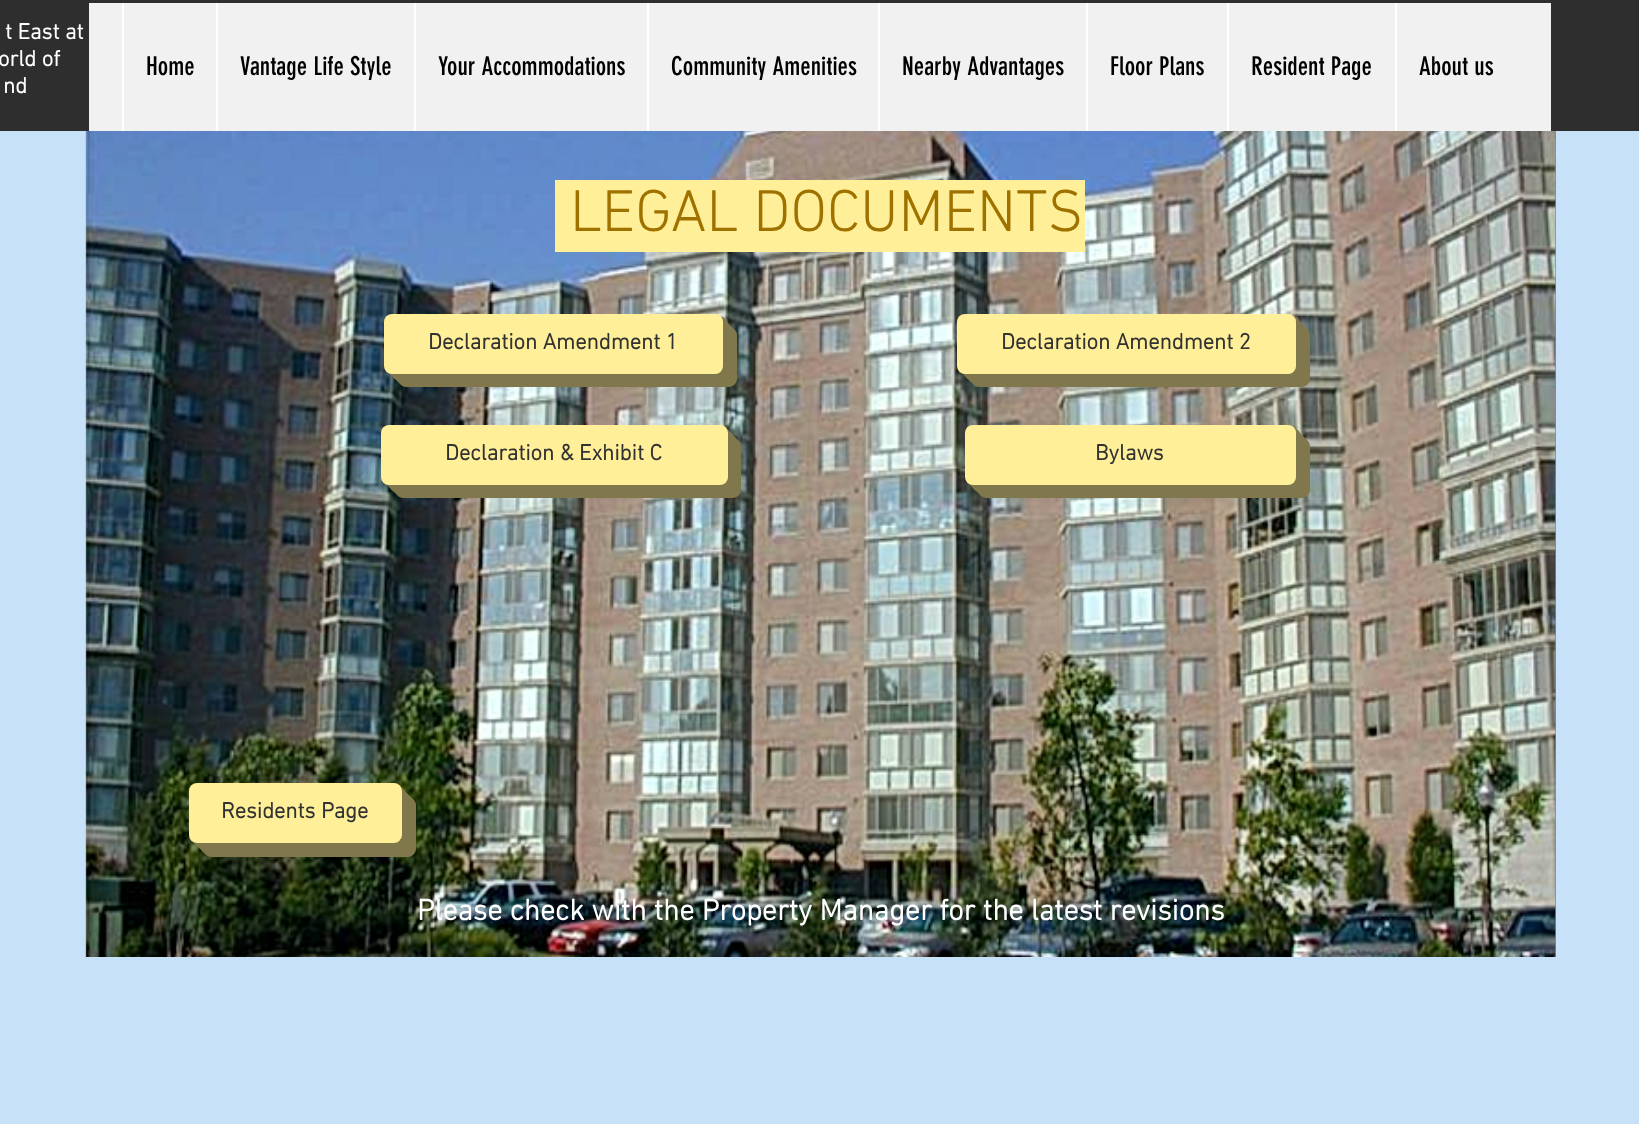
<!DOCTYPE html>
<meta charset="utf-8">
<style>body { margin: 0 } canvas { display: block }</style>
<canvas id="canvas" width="1639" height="1124"></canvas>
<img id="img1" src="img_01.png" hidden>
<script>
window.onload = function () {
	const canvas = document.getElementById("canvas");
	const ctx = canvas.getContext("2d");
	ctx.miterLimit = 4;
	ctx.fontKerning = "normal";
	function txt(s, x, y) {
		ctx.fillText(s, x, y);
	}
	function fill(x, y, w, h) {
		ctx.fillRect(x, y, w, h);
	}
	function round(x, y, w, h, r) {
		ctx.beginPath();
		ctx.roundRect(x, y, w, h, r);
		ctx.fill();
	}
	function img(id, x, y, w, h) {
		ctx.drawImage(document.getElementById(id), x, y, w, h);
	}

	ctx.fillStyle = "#C7E2F8";
	fill(0, 0, 1639, 1124);
	ctx.fillStyle = "#2F2E2E";
	fill(0, 0, 1639, 131);
	ctx.fillStyle = "#F1F1F1";
	fill(89, 3, 1462, 128);
	ctx.fillStyle = "#FFFFFF";
	fill(122, 3, 2, 128);
	fill(216, 3, 2, 128);
	fill(414, 3, 2, 128);
	fill(647, 3, 2, 128);
	fill(878, 3, 2, 128);
	fill(1086, 3, 2, 128);
	fill(1227, 3, 2, 128);
	fill(1395, 3, 2, 128);
	ctx.fillStyle = "#2BB3B0";
	fill(1555, 131, 1, 826);
	img("img1", 85, 131, 1471, 826);
	ctx.fillStyle = "#FFEF98";
	fill(555, 180, 530, 72);
	ctx.fillStyle = "#80784C";
	ctx.beginPath();
	ctx.moveTo(398, 374);
	ctx.lineTo(398, 379);
	ctx.bezierCurveTo(398, 383, 402, 387, 406, 387);
	ctx.lineTo(729, 387);
	ctx.bezierCurveTo(733, 387, 737, 383, 737, 379);
	ctx.lineTo(737, 335);
	ctx.bezierCurveTo(737, 331, 733, 327, 729, 327);
	ctx.lineTo(723, 327);
	ctx.lineTo(723, 366);
	ctx.bezierCurveTo(723, 370, 720, 374, 716, 374);
	ctx.closePath();
	ctx.fill();
	ctx.beginPath();
	ctx.moveTo(395, 374);
	ctx.lineTo(395, 376);
	ctx.bezierCurveTo(395, 380, 399, 384, 403, 384);
	ctx.lineTo(726, 384);
	ctx.bezierCurveTo(730, 384, 734, 380, 734, 376);
	ctx.lineTo(734, 332);
	ctx.bezierCurveTo(734, 328, 730, 324, 726, 324);
	ctx.lineTo(723, 324);
	ctx.lineTo(723, 366);
	ctx.bezierCurveTo(723, 370, 720, 374, 716, 374);
	ctx.closePath();
	ctx.fill();
	ctx.beginPath();
	ctx.moveTo(392, 374);
	ctx.bezierCurveTo(392, 378, 396, 381, 400, 381);
	ctx.lineTo(723, 381);
	ctx.bezierCurveTo(727, 381, 731, 377, 731, 373);
	ctx.lineTo(731, 329);
	ctx.bezierCurveTo(731, 325, 727, 321, 723, 321);
	ctx.lineTo(723, 366);
	ctx.bezierCurveTo(723, 370, 720, 374, 716, 374);
	ctx.closePath();
	ctx.fill();
	ctx.beginPath();
	ctx.moveTo(390, 373);
	ctx.bezierCurveTo(391, 376, 394, 378, 397, 378);
	ctx.lineTo(720, 378);
	ctx.bezierCurveTo(724, 378, 728, 374, 728, 370);
	ctx.lineTo(728, 326);
	ctx.bezierCurveTo(728, 322, 726, 319, 723, 318);
	ctx.lineTo(723, 358);
	ctx.bezierCurveTo(723, 364, 724, 373, 716, 374);
	ctx.closePath();
	ctx.fill();
	ctx.beginPath();
	ctx.moveTo(389, 373);
	ctx.bezierCurveTo(390, 374, 392, 375, 394, 375);
	ctx.lineTo(717, 375);
	ctx.bezierCurveTo(721, 375, 725, 371, 725, 367);
	ctx.lineTo(725, 323);
	ctx.bezierCurveTo(725, 320, 724, 318, 721, 316);
	ctx.bezierCurveTo(722, 318, 723, 319, 723, 321);
	ctx.lineTo(723, 366);
	ctx.bezierCurveTo(723, 370, 720, 374, 716, 374);
	ctx.lineTo(392, 374);
	ctx.closePath();
	ctx.fill();
	ctx.fillStyle = "#FFEF98";
	round(384, 314, 339, 60, 8);
	ctx.fillStyle = "#80784C";
	ctx.beginPath();
	ctx.moveTo(971, 374);
	ctx.lineTo(971, 379);
	ctx.bezierCurveTo(971, 383, 975, 387, 979, 387);
	ctx.lineTo(1302, 387);
	ctx.bezierCurveTo(1306, 387, 1310, 383, 1310, 379);
	ctx.lineTo(1310, 335);
	ctx.bezierCurveTo(1310, 331, 1306, 327, 1302, 327);
	ctx.lineTo(1296, 327);
	ctx.lineTo(1296, 366);
	ctx.bezierCurveTo(1296, 370, 1293, 374, 1288, 374);
	ctx.closePath();
	ctx.fill();
	ctx.beginPath();
	ctx.moveTo(968, 374);
	ctx.lineTo(968, 376);
	ctx.bezierCurveTo(968, 380, 972, 384, 976, 384);
	ctx.lineTo(1299, 384);
	ctx.bezierCurveTo(1303, 384, 1307, 380, 1307, 376);
	ctx.lineTo(1307, 332);
	ctx.bezierCurveTo(1307, 328, 1303, 324, 1299, 324);
	ctx.lineTo(1296, 324);
	ctx.lineTo(1296, 366);
	ctx.bezierCurveTo(1296, 370, 1293, 374, 1288, 374);
	ctx.closePath();
	ctx.fill();
	ctx.beginPath();
	ctx.moveTo(965, 374);
	ctx.bezierCurveTo(965, 378, 969, 381, 973, 381);
	ctx.lineTo(1296, 381);
	ctx.bezierCurveTo(1300, 381, 1304, 377, 1304, 373);
	ctx.lineTo(1304, 329);
	ctx.bezierCurveTo(1304, 325, 1300, 321, 1296, 321);
	ctx.lineTo(1296, 366);
	ctx.bezierCurveTo(1296, 370, 1293, 374, 1288, 374);
	ctx.closePath();
	ctx.fill();
	ctx.beginPath();
	ctx.moveTo(963, 373);
	ctx.bezierCurveTo(964, 376, 967, 378, 970, 378);
	ctx.lineTo(1293, 378);
	ctx.bezierCurveTo(1297, 378, 1301, 374, 1301, 370);
	ctx.lineTo(1301, 326);
	ctx.bezierCurveTo(1301, 322, 1299, 319, 1296, 318);
	ctx.lineTo(1296, 358);
	ctx.bezierCurveTo(1296, 364, 1297, 373, 1288, 374);
	ctx.closePath();
	ctx.fill();
	ctx.beginPath();
	ctx.moveTo(962, 373);
	ctx.bezierCurveTo(963, 374, 965, 375, 967, 375);
	ctx.lineTo(1290, 375);
	ctx.bezierCurveTo(1294, 375, 1298, 371, 1298, 367);
	ctx.lineTo(1298, 323);
	ctx.bezierCurveTo(1298, 320, 1297, 318, 1294, 316);
	ctx.bezierCurveTo(1295, 318, 1296, 319, 1296, 321);
	ctx.lineTo(1296, 366);
	ctx.bezierCurveTo(1296, 370, 1293, 374, 1288, 374);
	ctx.lineTo(964, 374);
	ctx.closePath();
	ctx.fill();
	ctx.fillStyle = "#FFEF98";
	round(957, 314, 339, 60, 8);
	ctx.fillStyle = "#80784C";
	ctx.beginPath();
	ctx.moveTo(395, 484);
	ctx.lineTo(395, 490);
	ctx.bezierCurveTo(395, 494, 399, 498, 403, 498);
	ctx.lineTo(733, 498);
	ctx.bezierCurveTo(737, 498, 741, 494, 741, 490);
	ctx.lineTo(741, 446);
	ctx.bezierCurveTo(741, 442, 737, 438, 733, 438);
	ctx.lineTo(728, 438);
	ctx.lineTo(728, 477);
	ctx.bezierCurveTo(728, 481, 724, 484, 720, 484);
	ctx.closePath();
	ctx.fill();
	ctx.beginPath();
	ctx.moveTo(392, 484);
	ctx.lineTo(392, 487);
	ctx.bezierCurveTo(392, 491, 396, 495, 400, 495);
	ctx.lineTo(730, 495);
	ctx.bezierCurveTo(734, 495, 738, 491, 738, 487);
	ctx.lineTo(738, 443);
	ctx.bezierCurveTo(738, 439, 734, 435, 730, 435);
	ctx.lineTo(728, 435);
	ctx.lineTo(728, 477);
	ctx.bezierCurveTo(728, 481, 724, 484, 720, 484);
	ctx.closePath();
	ctx.fill();
	ctx.beginPath();
	ctx.moveTo(389, 484);
	ctx.bezierCurveTo(389, 489, 393, 492, 397, 492);
	ctx.lineTo(727, 492);
	ctx.bezierCurveTo(731, 492, 735, 488, 735, 484);
	ctx.lineTo(735, 440);
	ctx.bezierCurveTo(735, 436, 732, 432, 728, 432);
	ctx.lineTo(728, 477);
	ctx.bezierCurveTo(728, 481, 724, 484, 720, 484);
	ctx.closePath();
	ctx.fill();
	ctx.beginPath();
	ctx.moveTo(387, 484);
	ctx.bezierCurveTo(388, 487, 391, 489, 394, 489);
	ctx.lineTo(724, 489);
	ctx.bezierCurveTo(728, 489, 732, 485, 732, 481);
	ctx.lineTo(732, 437);
	ctx.bezierCurveTo(732, 434, 730, 431, 727, 430);
	ctx.lineTo(728, 470);
	ctx.bezierCurveTo(728, 475, 729, 484, 720, 484);
	ctx.closePath();
	ctx.fill();
	ctx.beginPath();
	ctx.moveTo(386, 484);
	ctx.bezierCurveTo(387, 485, 389, 486, 391, 486);
	ctx.lineTo(721, 486);
	ctx.bezierCurveTo(725, 486, 729, 482, 729, 478);
	ctx.lineTo(729, 434);
	ctx.bezierCurveTo(729, 432, 728, 430, 726, 428);
	ctx.bezierCurveTo(727, 429, 728, 431, 728, 432);
	ctx.lineTo(728, 477);
	ctx.bezierCurveTo(728, 481, 724, 484, 720, 484);
	ctx.lineTo(388, 484);
	ctx.closePath();
	ctx.fill();
	ctx.fillStyle = "#FFEF98";
	round(381, 425, 347, 60, 8);
	ctx.fillStyle = "#80784C";
	ctx.beginPath();
	ctx.moveTo(978, 484);
	ctx.lineTo(978, 490);
	ctx.bezierCurveTo(978, 494, 982, 498, 986, 498);
	ctx.lineTo(1302, 498);
	ctx.bezierCurveTo(1306, 498, 1310, 494, 1310, 490);
	ctx.lineTo(1310, 446);
	ctx.bezierCurveTo(1310, 442, 1306, 438, 1302, 438);
	ctx.lineTo(1296, 438);
	ctx.lineTo(1296, 477);
	ctx.bezierCurveTo(1296, 481, 1293, 484, 1288, 484);
	ctx.closePath();
	ctx.fill();
	ctx.beginPath();
	ctx.moveTo(975, 484);
	ctx.lineTo(975, 487);
	ctx.bezierCurveTo(975, 491, 979, 495, 983, 495);
	ctx.lineTo(1299, 495);
	ctx.bezierCurveTo(1303, 495, 1307, 491, 1307, 487);
	ctx.lineTo(1307, 443);
	ctx.bezierCurveTo(1307, 439, 1303, 435, 1299, 435);
	ctx.lineTo(1296, 435);
	ctx.lineTo(1296, 477);
	ctx.bezierCurveTo(1296, 481, 1293, 484, 1288, 484);
	ctx.closePath();
	ctx.fill();
	ctx.beginPath();
	ctx.moveTo(972, 484);
	ctx.bezierCurveTo(972, 489, 976, 492, 980, 492);
	ctx.lineTo(1296, 492);
	ctx.bezierCurveTo(1300, 492, 1304, 488, 1304, 484);
	ctx.lineTo(1304, 440);
	ctx.bezierCurveTo(1304, 436, 1300, 432, 1296, 432);
	ctx.lineTo(1296, 477);
	ctx.bezierCurveTo(1296, 481, 1293, 484, 1288, 484);
	ctx.closePath();
	ctx.fill();
	ctx.beginPath();
	ctx.moveTo(970, 484);
	ctx.bezierCurveTo(971, 487, 974, 489, 977, 489);
	ctx.lineTo(1293, 489);
	ctx.bezierCurveTo(1297, 489, 1301, 485, 1301, 481);
	ctx.lineTo(1301, 437);
	ctx.bezierCurveTo(1301, 433, 1299, 430, 1296, 429);
	ctx.lineTo(1296, 432);
	ctx.lineTo(1296, 477);
	ctx.bezierCurveTo(1296, 481, 1293, 484, 1288, 484);
	ctx.lineTo(972, 484);
	ctx.closePath();
	ctx.fill();
	ctx.beginPath();
	ctx.moveTo(968, 483);
	ctx.bezierCurveTo(970, 485, 972, 486, 974, 486);
	ctx.lineTo(1290, 486);
	ctx.bezierCurveTo(1294, 486, 1298, 482, 1298, 478);
	ctx.lineTo(1298, 434);
	ctx.bezierCurveTo(1298, 431, 1297, 429, 1294, 427);
	ctx.bezierCurveTo(1295, 429, 1296, 430, 1296, 432);
	ctx.lineTo(1296, 477);
	ctx.bezierCurveTo(1296, 481, 1293, 484, 1288, 484);
	ctx.lineTo(972, 484);
	ctx.bezierCurveTo(971, 484, 969, 484, 968, 483);
	ctx.closePath();
	ctx.fill();
	ctx.fillStyle = "#FFEF98";
	round(965, 425, 331, 60, 8);
	ctx.fillStyle = "#80784C";
	ctx.beginPath();
	ctx.moveTo(203, 843);
	ctx.lineTo(203, 849);
	ctx.bezierCurveTo(203, 853, 207, 857, 211, 857);
	ctx.lineTo(408, 857);
	ctx.bezierCurveTo(412, 857, 416, 853, 416, 849);
	ctx.lineTo(416, 805);
	ctx.bezierCurveTo(416, 801, 412, 797, 408, 797);
	ctx.lineTo(402, 797);
	ctx.lineTo(402, 836);
	ctx.bezierCurveTo(402, 840, 399, 843, 394, 843);
	ctx.closePath();
	ctx.fill();
	ctx.beginPath();
	ctx.moveTo(200, 843);
	ctx.lineTo(200, 846);
	ctx.bezierCurveTo(200, 850, 204, 854, 208, 854);
	ctx.lineTo(405, 854);
	ctx.bezierCurveTo(409, 854, 413, 850, 413, 846);
	ctx.lineTo(413, 802);
	ctx.bezierCurveTo(413, 798, 409, 794, 405, 794);
	ctx.lineTo(402, 794);
	ctx.lineTo(402, 836);
	ctx.bezierCurveTo(402, 840, 399, 843, 394, 843);
	ctx.closePath();
	ctx.fill();
	ctx.beginPath();
	ctx.moveTo(197, 843);
	ctx.bezierCurveTo(197, 847, 201, 851, 205, 851);
	ctx.lineTo(402, 851);
	ctx.bezierCurveTo(406, 851, 410, 847, 410, 843);
	ctx.lineTo(410, 799);
	ctx.bezierCurveTo(410, 795, 406, 791, 402, 791);
	ctx.lineTo(402, 836);
	ctx.bezierCurveTo(402, 840, 399, 843, 394, 843);
	ctx.closePath();
	ctx.fill();
	ctx.beginPath();
	ctx.moveTo(194, 843);
	ctx.bezierCurveTo(196, 846, 199, 848, 202, 848);
	ctx.lineTo(399, 848);
	ctx.bezierCurveTo(403, 848, 407, 844, 407, 840);
	ctx.lineTo(407, 796);
	ctx.bezierCurveTo(407, 793, 405, 790, 402, 788);
	ctx.lineTo(402, 837);
	ctx.bezierCurveTo(399, 849, 372, 843, 362, 843);
	ctx.closePath();
	ctx.fill();
	ctx.beginPath();
	ctx.moveTo(193, 842);
	ctx.bezierCurveTo(194, 844, 196, 845, 199, 845);
	ctx.lineTo(396, 845);
	ctx.bezierCurveTo(400, 845, 404, 841, 404, 837);
	ctx.lineTo(404, 793);
	ctx.bezierCurveTo(404, 790, 403, 788, 401, 787);
	ctx.bezierCurveTo(402, 788, 402, 789, 402, 790);
	ctx.lineTo(402, 836);
	ctx.bezierCurveTo(402, 840, 399, 843, 394, 843);
	ctx.lineTo(196, 843);
	ctx.bezierCurveTo(195, 843, 194, 843, 193, 842);
	ctx.closePath();
	ctx.fill();
	ctx.fillStyle = "#FFEF98";
	round(189, 783, 213, 60, 8);
	ctx.font = "bold 22.5px 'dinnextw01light'";
	ctx.fillStyle = "#FFFFFF";
	txt("t East at", 5, 39);
	txt("orld of", -2, 66);
	txt("nd", 3, 93);
	ctx.font = "25.5px 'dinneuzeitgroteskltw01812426'";
	ctx.fillStyle = "#000000";
	txt("Home", 146, 75);
	txt("Vantage Life Style", 240, 75);
	txt("Your Accommodations", 438, 75);
	txt("Community Amenities", 671, 75);
	txt("Nearby Advantages", 902, 75);
	txt("Floor Plans", 1110, 75);
	txt("Resident Page", 1251, 75);
	txt("About us", 1419, 75);
	ctx.font = "300 60px 'dinnextw01light'";
	ctx.fillStyle = "#9F7200";
	txt("LEGAL DOCUMENTS", 570, 231);
	ctx.font = "bold 22.5px 'dinnextw01light'";
	ctx.fillStyle = "#323232";
	txt("Declaration Amendment 1", 428, 349);
	txt("Declaration Amendment 2", 1001, 349);
	txt("Declaration & Exhibit C", 445, 460);
	txt("Bylaws", 1095, 460);
	txt("Residents Page", 221, 818);
	ctx.font = "bold 30px 'dinnextw01light'";
	ctx.fillStyle = "#FFFFFF";
	txt("Please check with the Property Manager for the latest revisions", 417, 920);
};
</script>
